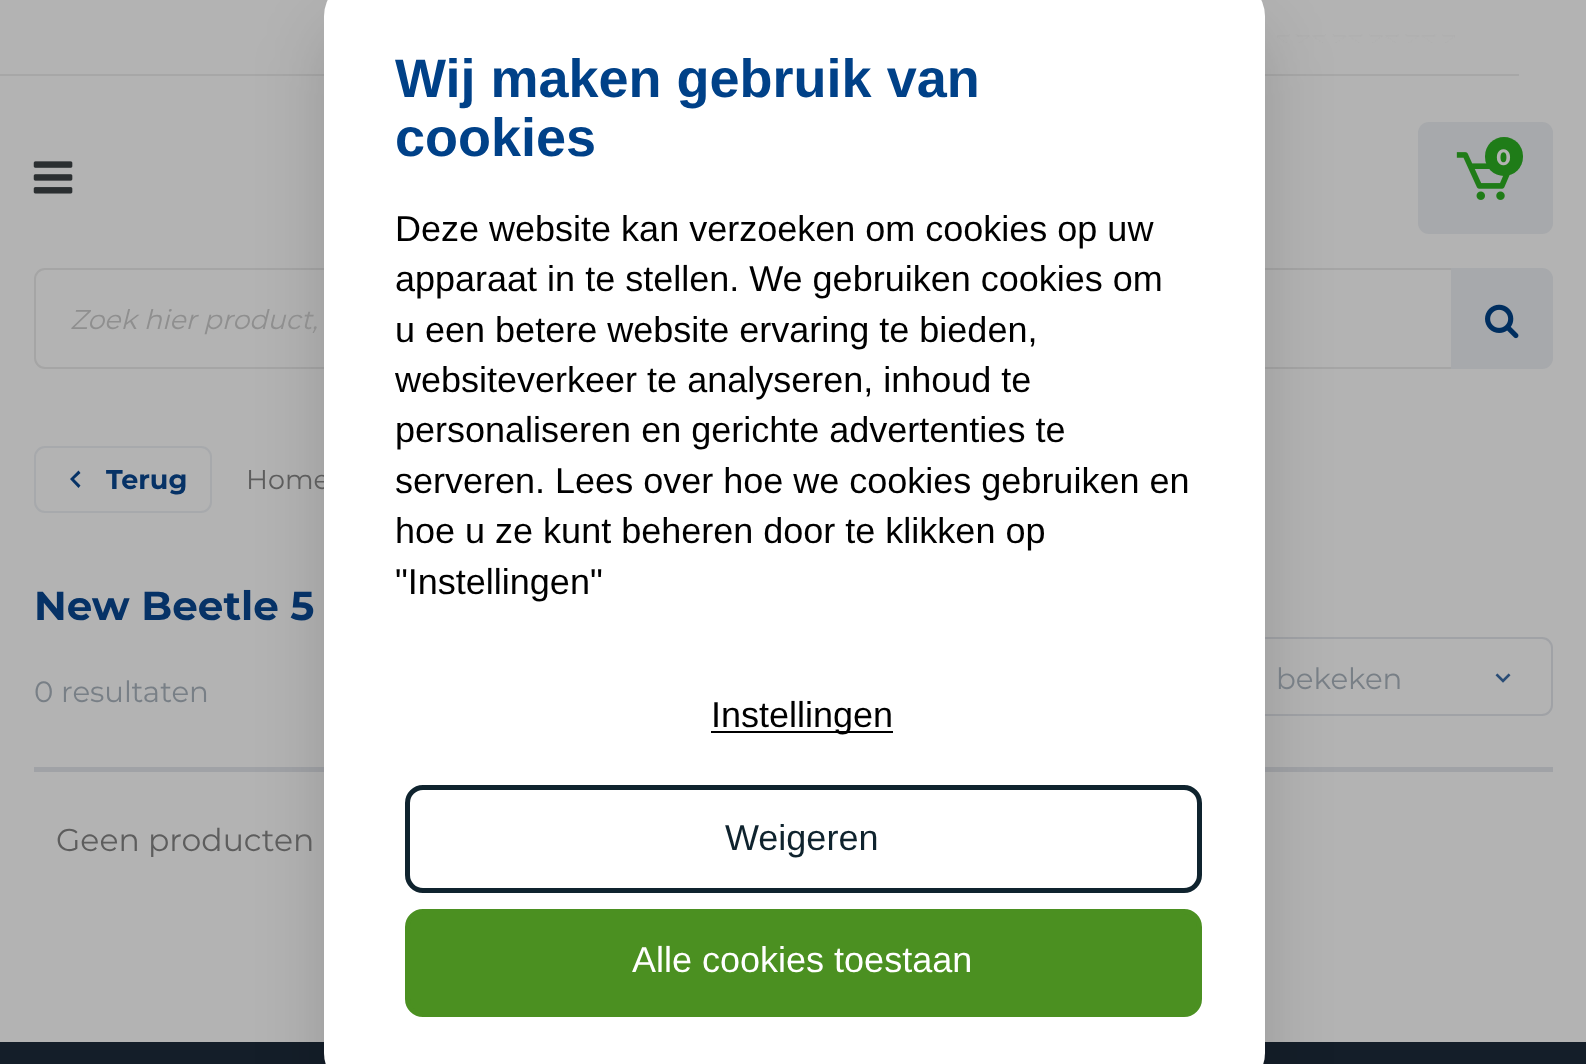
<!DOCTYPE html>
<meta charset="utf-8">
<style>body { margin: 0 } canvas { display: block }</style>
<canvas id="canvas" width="1586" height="1064"></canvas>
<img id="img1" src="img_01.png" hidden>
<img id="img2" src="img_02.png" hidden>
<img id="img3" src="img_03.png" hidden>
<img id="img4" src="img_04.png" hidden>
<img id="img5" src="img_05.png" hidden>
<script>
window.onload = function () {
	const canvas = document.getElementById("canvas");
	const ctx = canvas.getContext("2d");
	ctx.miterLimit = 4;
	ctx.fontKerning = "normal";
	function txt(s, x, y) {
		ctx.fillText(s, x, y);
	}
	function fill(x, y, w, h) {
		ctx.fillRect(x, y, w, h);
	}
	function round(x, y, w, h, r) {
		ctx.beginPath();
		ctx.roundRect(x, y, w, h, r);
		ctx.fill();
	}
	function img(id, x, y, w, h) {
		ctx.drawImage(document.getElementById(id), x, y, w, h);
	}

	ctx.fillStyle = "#B3B3B3";
	fill(0, 0, 1586, 1064);
	ctx.fillStyle = "#A7A7A7";
	fill(0, 74, 1519, 2);
	img("img1", 1277, 34, 178, 9);
	ctx.beginPath();
	ctx.roundRect(35, 269, 1422, 99, [10, 0, 0, 10]);
	ctx.strokeStyle = "#A5A5A5";
	ctx.lineWidth = 2;
	ctx.stroke();
	ctx.fillStyle = "#A0A2A6";
	fill(34, 767, 1519, 5);
	ctx.beginPath();
	ctx.roundRect(1144, 638, 408, 77, 10);
	ctx.strokeStyle = "#A0A2A6";
	ctx.stroke();
	ctx.fillStyle = "#141E29";
	fill(0, 1042, 1586, 22);
	ctx.fillStyle = "rgba(0, 0, 0, 0.15)";
	ctx.filter = "blur(34px)";
	ctx.beginPath();
	ctx.roundRect(324, 25, 941, 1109, 36);
	ctx.fill();
	ctx.filter = "none";
	ctx.fillStyle = "#A7A9AC";
	round(1418, 122, 135, 112, 11);
	img("img2", 1456, 152, 54, 48);
	ctx.fillStyle = "#1F7C18";
	round(1485, 137, 38, 39, 19);
	img("img3", 33, 161, 40, 33);
	ctx.fillStyle = "#A7A9AC";
	ctx.beginPath();
	ctx.roundRect(1451, 268, 102, 101, [0, 11, 11, 0]);
	ctx.fill();
	img("img4", 1485, 304, 34, 35);
	ctx.beginPath();
	ctx.roundRect(35, 447, 176, 65, 10);
	ctx.strokeStyle = "#A7A9AC";
	ctx.stroke();
	ctx.fillStyle = "#063266";
	ctx.beginPath();
	ctx.moveTo(78.5, 470.5);
	ctx.lineTo(70, 479);
	ctx.lineTo(78.5, 488);
	ctx.lineTo(80.5, 485.5);
	ctx.lineTo(74, 479);
	ctx.lineTo(80.5, 473);
	ctx.closePath();
	ctx.fill();
	img("img5", 1495, 673, 16, 10);
	ctx.font = "bold 22px Montserrat";
	ctx.fillStyle = "#B3B3B3";
	txt("0", 1496, 165);
	ctx.font = "italic 27px Montserrat";
	ctx.fillStyle = "#8F8F8F";
	txt("Zoek hier product,", 70, 329);
	ctx.font = "bold 27px Montserrat";
	ctx.fillStyle = "#063266";
	txt("Terug", 106, 489);
	ctx.font = "27px Montserrat";
	ctx.fillStyle = "#5D5D5D";
	txt("Home", 246, 489);
	ctx.fillStyle = "#FFFFFF";
	round(324, -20, 941, 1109, 36);
	ctx.fillStyle = "#4B9021";
	ctx.beginPath();
	ctx.roundRect(407.5, 911.5, 792, 103, 15.5);
	ctx.fill();
	ctx.strokeStyle = "#4B9021";
	ctx.lineWidth = 5;
	ctx.stroke();
	ctx.font = "36px Liberation Sans";
	ctx.fillStyle = "#FFFFFF";
	txt("Alle cookies toestaan", 632, 972);
	ctx.beginPath();
	ctx.roundRect(407.5, 787.5, 792, 103, 15.5);
	ctx.strokeStyle = "#0F232E";
	ctx.stroke();
	ctx.fillStyle = "#0F232E";
	txt("Weigeren", 725, 850);
	ctx.fillStyle = "#000000";
	fill(711, 731, 182, 2);
	txt("Instellingen", 711, 727);
	txt("\"Instellingen\"", 395, 594);
	txt("hoe u ze kunt beheren door te klikken op", 395, 543);
	txt("serveren. Lees over hoe we cookies gebruiken en", 395, 493);
	txt("personaliseren en gerichte advertenties te", 395, 442);
	txt("websiteverkeer te analyseren, inhoud te", 395, 392);
	txt("u een betere website ervaring te bieden,", 395, 342);
	txt("apparaat in te stellen. We gebruiken cookies om", 395, 291);
	txt("Deze website kan verzoeken om cookies op uw", 395, 241);
	ctx.font = "bold 54px Liberation Sans";
	ctx.fillStyle = "#004188";
	txt("cookies", 395, 156);
	txt("Wij maken gebruik van", 395, 97);
	ctx.font = "bold 40.5px Montserrat";
	ctx.fillStyle = "#063266";
	txt("New Beetle 5", 34, 620);
	ctx.font = "29.25px Montserrat";
	ctx.fillStyle = "#787F86";
	txt("0 resultaten", 34, 702);
	txt("bekeken", 1276, 689);
	ctx.font = "31.5px Montserrat";
	ctx.fillStyle = "#5D5D5D";
	txt("Geen producten", 56, 851);
};
</script>
